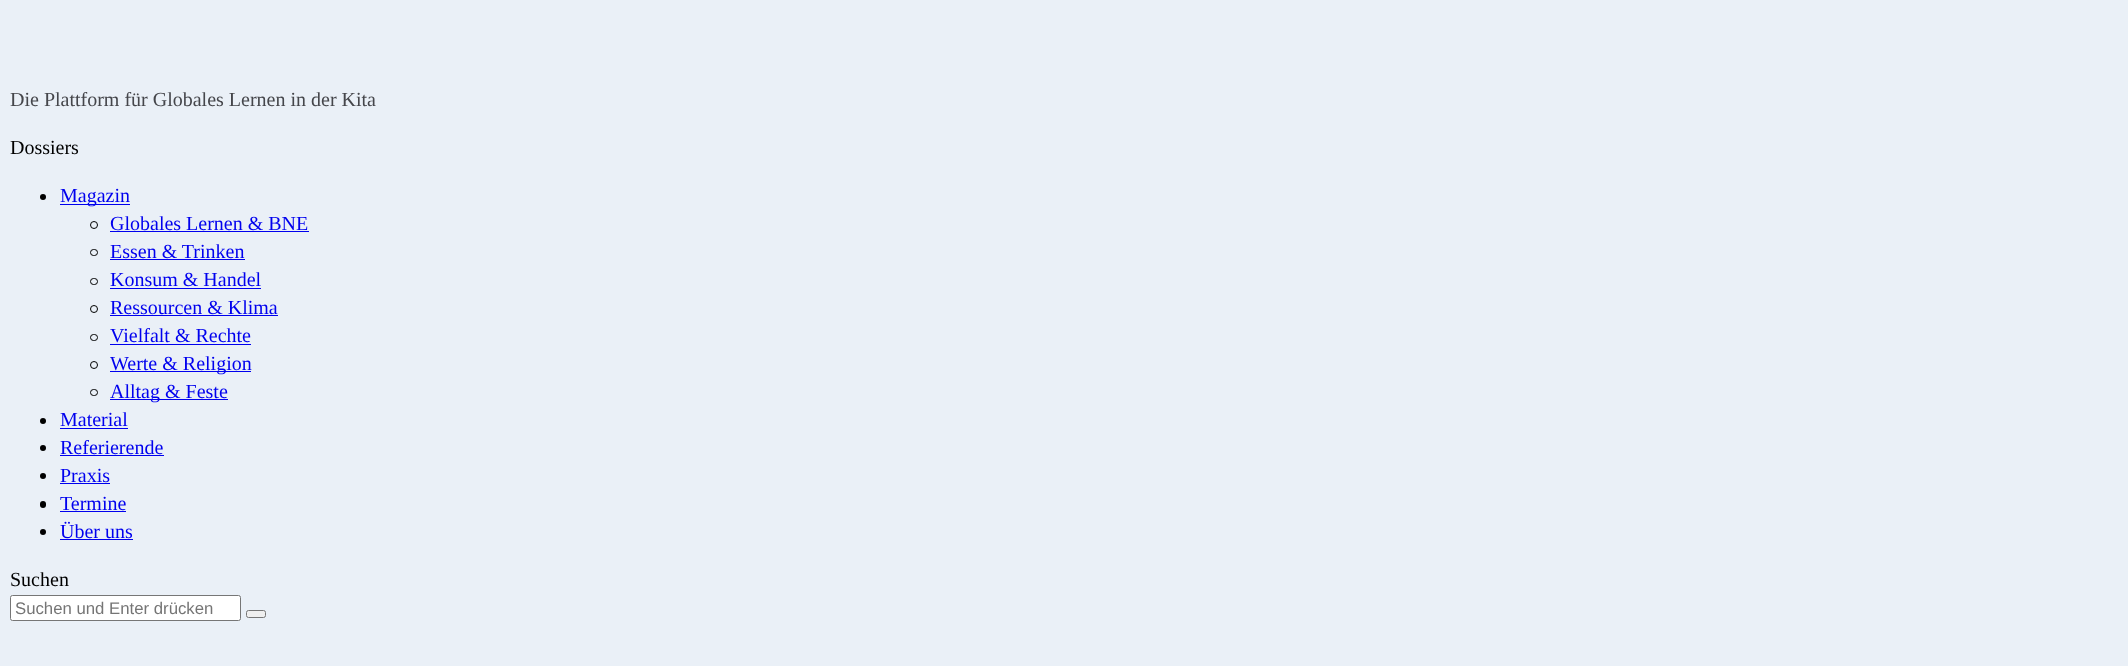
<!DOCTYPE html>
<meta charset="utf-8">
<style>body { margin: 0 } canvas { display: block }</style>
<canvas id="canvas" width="2128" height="666"></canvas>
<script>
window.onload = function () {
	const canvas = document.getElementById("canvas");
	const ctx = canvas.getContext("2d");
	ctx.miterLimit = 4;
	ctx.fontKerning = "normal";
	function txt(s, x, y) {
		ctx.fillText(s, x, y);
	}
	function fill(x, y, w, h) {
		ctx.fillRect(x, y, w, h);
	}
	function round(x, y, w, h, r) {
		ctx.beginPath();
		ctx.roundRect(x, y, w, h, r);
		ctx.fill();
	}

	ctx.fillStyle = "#EAF0F7";
	fill(0, 0, 2128, 666);
	ctx.fillStyle = "#000000";
	ctx.beginPath();
	ctx.arc(43, 197, 3, 0, Math.PI * 2);
	ctx.fill();
	ctx.fillStyle = "#0000EE";
	fill(60, 204, 70, 1);
	ctx.beginPath();
	ctx.arc(94, 225, 3.5, 0, Math.PI * 2);
	ctx.strokeStyle = "#000000";
	ctx.stroke();
	fill(110, 231, 199, 1);
	ctx.beginPath();
	ctx.roundRect(90.5, 249.5, 7, 6, 3);
	ctx.stroke();
	fill(110, 259, 135, 1);
	ctx.beginPath();
	ctx.roundRect(90.5, 278.5, 7, 6, 3);
	ctx.stroke();
	fill(110, 288, 151, 1);
	ctx.beginPath();
	ctx.arc(94, 309, 3.5, 0, Math.PI * 2);
	ctx.stroke();
	fill(110, 315, 168, 1);
	ctx.beginPath();
	ctx.roundRect(90.5, 334.5, 7, 6, 3);
	ctx.stroke();
	fill(110, 344, 141, 1);
	ctx.beginPath();
	ctx.arc(94, 365, 3.5, 0, Math.PI * 2);
	ctx.stroke();
	fill(110, 371, 141, 1);
	ctx.beginPath();
	ctx.roundRect(90.5, 389.5, 7, 6, 3);
	ctx.stroke();
	fill(110, 399, 118, 1);
	ctx.fillStyle = "#000000";
	ctx.beginPath();
	ctx.arc(43, 421, 3, 0, Math.PI * 2);
	ctx.fill();
	ctx.fillStyle = "#0000EE";
	fill(60, 428, 68, 1);
	ctx.fillStyle = "#000000";
	ctx.beginPath();
	ctx.arc(43, 448, 3, 0, Math.PI * 2);
	ctx.fill();
	ctx.fillStyle = "#0000EE";
	fill(60, 455, 104, 1);
	ctx.fillStyle = "#000000";
	ctx.beginPath();
	ctx.arc(43, 476, 3, 0, Math.PI * 2);
	ctx.fill();
	ctx.fillStyle = "#0000EE";
	fill(60, 483, 50, 1);
	ctx.fillStyle = "#000000";
	round(40, 501, 6, 7, 3);
	ctx.fillStyle = "#0000EE";
	fill(60, 511, 66, 1);
	ctx.fillStyle = "#000000";
	ctx.beginPath();
	ctx.arc(43, 532, 3, 0, Math.PI * 2);
	ctx.fill();
	ctx.fillStyle = "#0000EE";
	fill(60, 539, 73, 1);
	ctx.fillStyle = "#FFFFFF";
	ctx.beginPath();
	ctx.roundRect(10.5, 595.5, 230, 25, 2);
	ctx.fill();
	ctx.strokeStyle = "#767676";
	ctx.stroke();
	ctx.fillStyle = "#EFEFEF";
	ctx.beginPath();
	ctx.roundRect(246.5, 610.5, 19, 7, 2);
	ctx.fill();
	ctx.stroke();
	ctx.font = "20px Liberation Serif";
	ctx.fillStyle = "#45464B";
	txt("Die Plattform für Globales Lernen in der Kita", 10, 106);
	ctx.fillStyle = "#000000";
	txt("Dossiers", 10, 154);
	ctx.fillStyle = "#0000EE";
	txt("Magazin", 60, 202);
	txt("Globales Lernen & BNE", 110, 230);
	txt("Essen & Trinken", 110, 258);
	txt("Konsum & Handel", 110, 286);
	txt("Ressourcen & Klima", 110, 314);
	txt("Vielfalt & Rechte", 110, 342);
	txt("Werte & Religion", 110, 370);
	txt("Alltag & Feste", 110, 398);
	txt("Material", 60, 426);
	txt("Referierende", 60, 454);
	txt("Praxis", 60, 482);
	txt("Termine", 60, 510);
	txt("Über uns", 60, 538);
	ctx.fillStyle = "#000000";
	txt("Suchen", 10, 586);
	ctx.font = "16.75px Liberation Sans";
	ctx.fillStyle = "#757575";
	txt("Suchen und Enter drücken", 15, 614);
};
</script>
